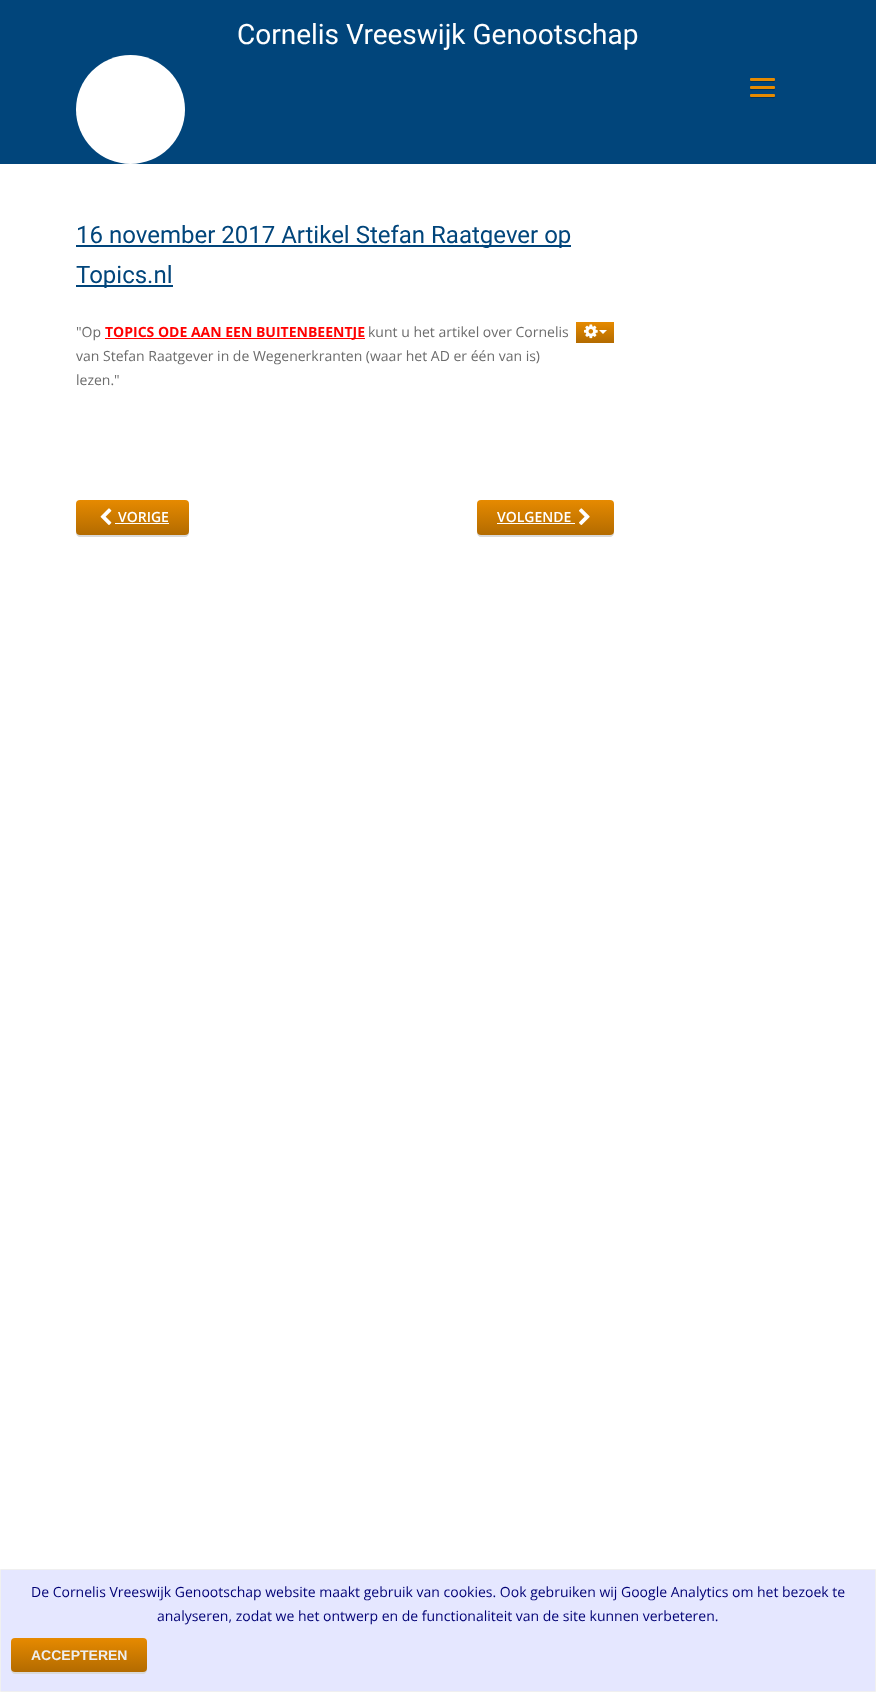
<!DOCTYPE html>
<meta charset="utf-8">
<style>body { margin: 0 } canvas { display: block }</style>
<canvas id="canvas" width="876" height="1692"></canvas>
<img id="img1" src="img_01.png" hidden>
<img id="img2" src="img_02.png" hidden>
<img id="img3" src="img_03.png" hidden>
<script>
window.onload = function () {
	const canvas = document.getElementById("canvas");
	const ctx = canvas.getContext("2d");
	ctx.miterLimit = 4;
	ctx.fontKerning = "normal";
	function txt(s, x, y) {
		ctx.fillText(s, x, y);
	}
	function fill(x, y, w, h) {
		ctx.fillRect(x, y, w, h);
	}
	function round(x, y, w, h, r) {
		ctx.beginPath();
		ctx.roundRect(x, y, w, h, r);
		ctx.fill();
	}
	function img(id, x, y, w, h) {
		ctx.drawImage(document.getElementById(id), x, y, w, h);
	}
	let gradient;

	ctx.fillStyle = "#FFFFFF";
	fill(0, 0, 876, 1692);
	ctx.fillStyle = "#01457B";
	fill(0, 0, 876, 164);
	ctx.fillStyle = "#FFFFFF";
	ctx.beginPath();
	ctx.arc(130.5, 109.5, 54.5, 0, Math.PI * 2);
	ctx.fill();
	ctx.fillStyle = "#01345C";
	ctx.beginPath();
	ctx.moveTo(750, 80);
	ctx.bezierCurveTo(750, 83, 751.5, 82, 755, 82);
	ctx.lineTo(770, 82);
	ctx.bezierCurveTo(773.5, 82, 775, 83, 775, 80);
	ctx.bezierCurveTo(775, 80.5, 774.5, 81, 774, 81);
	ctx.lineTo(751, 81);
	ctx.bezierCurveTo(750.5, 81, 750, 80.5, 750, 80);
	ctx.closePath();
	ctx.fill();
	ctx.fillStyle = "#E68A00";
	round(750, 78, 25, 3, 1);
	ctx.fillStyle = "#01345C";
	ctx.beginPath();
	ctx.moveTo(750, 88);
	ctx.bezierCurveTo(750, 91, 751.5, 90, 755, 90);
	ctx.lineTo(770, 90);
	ctx.bezierCurveTo(773.5, 90, 775, 91, 775, 88);
	ctx.bezierCurveTo(775, 88.5, 774.5, 89, 774, 89);
	ctx.lineTo(751, 89);
	ctx.bezierCurveTo(750.5, 89, 750, 88.5, 750, 88);
	ctx.closePath();
	ctx.fill();
	ctx.fillStyle = "#E68A00";
	round(750, 86, 25, 3, 1);
	ctx.fillStyle = "#01345C";
	ctx.beginPath();
	ctx.moveTo(750, 96);
	ctx.bezierCurveTo(750, 99, 751.5, 98, 755, 98);
	ctx.lineTo(770, 98);
	ctx.bezierCurveTo(773.5, 98, 775, 99, 775, 96);
	ctx.bezierCurveTo(775, 96.5, 774.5, 97, 774, 97);
	ctx.lineTo(751, 97);
	ctx.bezierCurveTo(750.5, 97, 750, 96.5, 750, 96);
	ctx.closePath();
	ctx.fill();
	ctx.fillStyle = "#E68A00";
	round(750, 94, 25, 3, 1);
	ctx.fillStyle = "#01457B";
	fill(76, 245, 495, 2);
	fill(76, 285, 97, 2);
	ctx.fillStyle = "#FF0000";
	fill(105, 338, 260, 1);
	gradient = ctx.createLinearGradient(595, 322, 595, 343);
	gradient.addColorStop(0, "#E68A00");
	gradient.addColorStop(1, "#B36B00");
	ctx.fillStyle = gradient;
	fill(576, 322, 38, 21);
	img("img1", 584, 324, 14, 15);
	ctx.fillStyle = "#FFFFFF";
	ctx.beginPath();
	ctx.moveTo(599, 330);
	ctx.lineTo(607, 330);
	ctx.lineTo(603, 334);
	ctx.closePath();
	ctx.fill();
	ctx.fillStyle = "#D9D9D9";
	ctx.beginPath();
	ctx.moveTo(76, 531);
	ctx.lineTo(76, 533);
	ctx.bezierCurveTo(76, 535, 78, 537, 80, 537);
	ctx.lineTo(185, 537);
	ctx.bezierCurveTo(187, 537, 189, 535, 189, 533);
	ctx.lineTo(189, 531);
	ctx.bezierCurveTo(189, 533, 187, 535, 185, 535);
	ctx.lineTo(80, 535);
	ctx.bezierCurveTo(78, 535, 76, 533, 76, 531);
	ctx.closePath();
	ctx.fill();
	gradient = ctx.createLinearGradient(133, 500, 133, 535);
	gradient.addColorStop(0, "#E68A00");
	gradient.addColorStop(1, "#B36B00");
	ctx.fillStyle = gradient;
	round(76, 500, 113, 35, 4);
	img("img2", 100, 508, 12, 17);
	ctx.fillStyle = "#FFFFFF";
	fill(115, 523, 54, 1);
	ctx.fillStyle = "#D9D9D9";
	ctx.beginPath();
	ctx.moveTo(477, 531);
	ctx.lineTo(477, 533);
	ctx.bezierCurveTo(477, 535, 479, 537, 481, 537);
	ctx.lineTo(610, 537);
	ctx.bezierCurveTo(612, 537, 614, 535, 614, 533);
	ctx.lineTo(614, 531);
	ctx.bezierCurveTo(614, 533, 612, 535, 610, 535);
	ctx.lineTo(481, 535);
	ctx.bezierCurveTo(479, 535, 477, 533, 477, 531);
	ctx.closePath();
	ctx.fill();
	gradient = ctx.createLinearGradient(546, 500, 546, 535);
	gradient.addColorStop(0, "#E68A00");
	gradient.addColorStop(1, "#B36B00");
	ctx.fillStyle = gradient;
	round(477, 500, 137, 35, 4);
	ctx.fillStyle = "#FFFFFF";
	fill(497, 523, 78, 1);
	img("img3", 579, 508, 11, 17);
	ctx.fillStyle = "#E5E7FF";
	ctx.beginPath();
	ctx.rect(0.5, 1569.5, 875, 122);
	ctx.fill();
	ctx.strokeStyle = "#F0F0F0";
	ctx.stroke();
	ctx.fillStyle = "#D9D9D9";
	ctx.beginPath();
	ctx.moveTo(11, 1668);
	ctx.lineTo(11, 1670);
	ctx.bezierCurveTo(11, 1672, 13, 1674, 15, 1674);
	ctx.lineTo(143, 1674);
	ctx.bezierCurveTo(145, 1674, 147, 1672, 147, 1670);
	ctx.lineTo(147, 1668);
	ctx.bezierCurveTo(147, 1670, 145, 1672, 143, 1672);
	ctx.lineTo(15, 1672);
	ctx.bezierCurveTo(13, 1672, 11, 1670, 11, 1668);
	ctx.closePath();
	ctx.fill();
	gradient = ctx.createLinearGradient(79, 1638, 79, 1672);
	gradient.addColorStop(0, "#E68A00");
	gradient.addColorStop(1, "#B36B00");
	ctx.fillStyle = gradient;
	round(11, 1638, 136, 34, 4);
	ctx.font = "28px Roboto";
	ctx.fillStyle = "#FFFFFF";
	txt("Cornelis Vreeswijk Genootschap", 237, 44);
	ctx.font = "24px Roboto";
	ctx.fillStyle = "#01457B";
	txt("16 november 2017 Artikel Stefan Raatgever op", 76, 243);
	txt("Topics.nl", 76, 283);
	ctx.font = "14px Open Sans";
	ctx.fillStyle = "#6C6C6C";
	txt("\"Op", 76, 337);
	ctx.font = "bold 14px Open Sans";
	ctx.fillStyle = "#FF0000";
	txt("TOPICS ODE AAN EEN BUITENBEENTJE", 105, 337);
	ctx.font = "14px Open Sans";
	ctx.fillStyle = "#6C6C6C";
	txt("kunt u het artikel over Cornelis", 368, 337);
	txt("van Stefan Raatgever in de Wegenerkranten (waar het AD er één van is)", 76, 361);
	txt("lezen.\"", 76, 385);
	ctx.font = "600 14px Open Sans";
	ctx.fillStyle = "#FFFFFF";
	txt("VORIGE", 118, 522);
	txt("VOLGENDE", 497, 522);
	ctx.font = "14px Open Sans";
	ctx.fillStyle = "#000075";
	txt("De Cornelis Vreeswijk Genootschap website maakt gebruik van cookies. Ook gebruiken wij Google Analytics om het bezoek te", 31, 1597);
	txt("analyseren, zodat we het ontwerp en de functionaliteit van de site kunnen verbeteren.", 157, 1621);
	ctx.font = "bold 14px Liberation Sans";
	ctx.fillStyle = "#EEEEEE";
	txt("ACCEPTEREN", 31, 1660);
};
</script>
